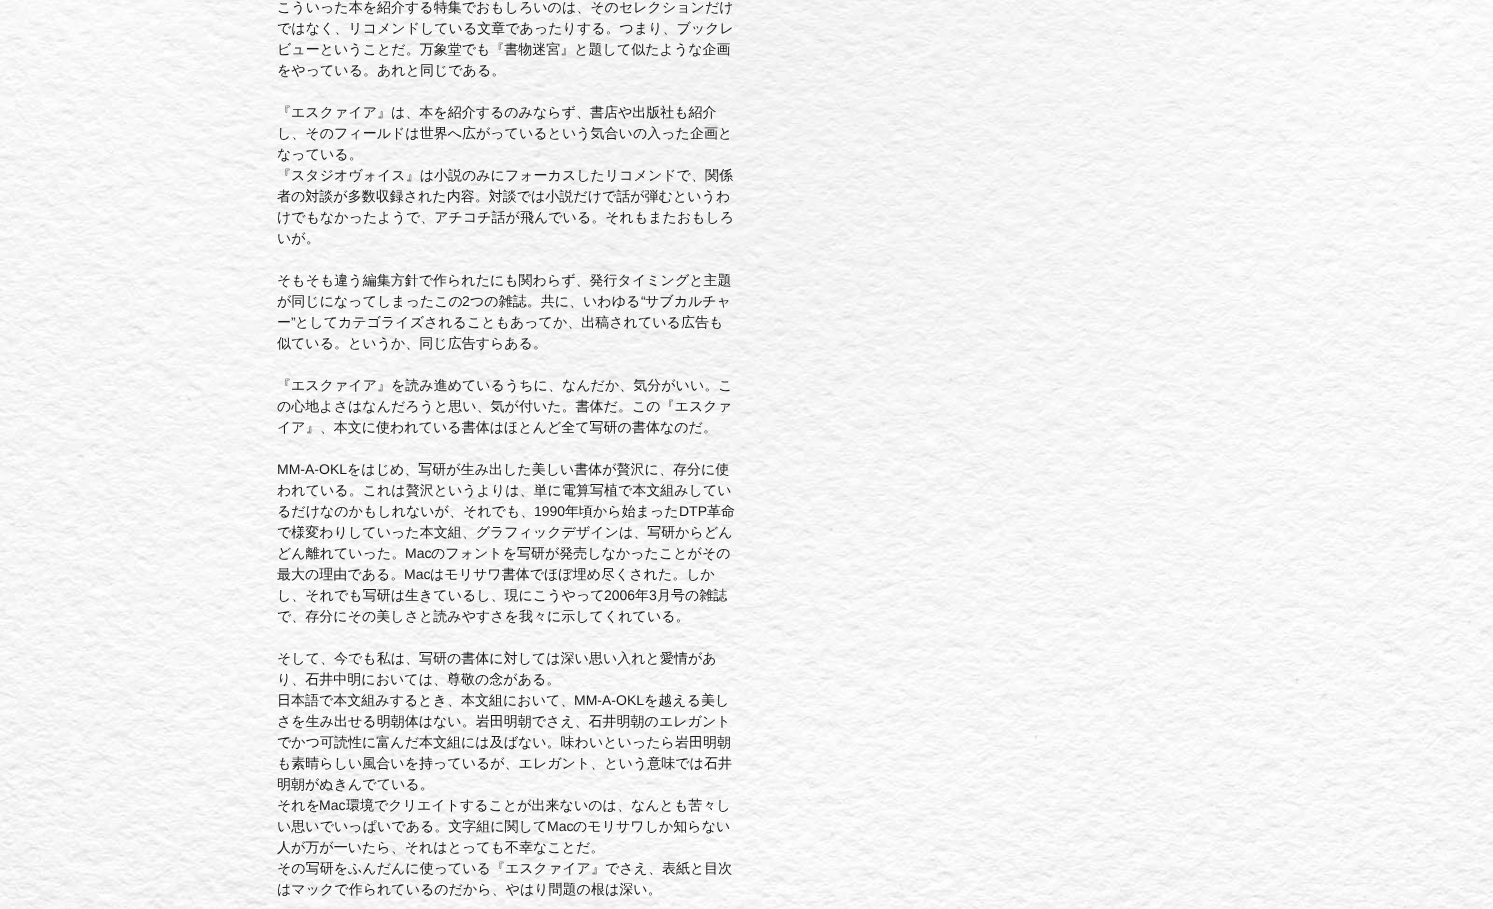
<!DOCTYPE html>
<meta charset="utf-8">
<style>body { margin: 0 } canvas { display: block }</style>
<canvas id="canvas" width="1493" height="909"></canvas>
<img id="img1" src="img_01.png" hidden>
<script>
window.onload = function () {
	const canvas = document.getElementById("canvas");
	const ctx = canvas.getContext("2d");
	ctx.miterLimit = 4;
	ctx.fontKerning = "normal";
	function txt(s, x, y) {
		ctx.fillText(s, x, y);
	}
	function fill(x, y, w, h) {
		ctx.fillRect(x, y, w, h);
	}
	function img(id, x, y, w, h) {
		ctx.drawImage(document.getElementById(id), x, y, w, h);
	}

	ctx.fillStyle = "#FFFFFF";
	fill(0, 0, 1493, 909);
	img("img1", 0, 0, 1493, 909);
	ctx.font = "500 14px WenQuanYi Zen Hei";
	ctx.fillStyle = "#181818";
	txt("こういった本を紹介する特集でおもしろいのは、そのセレクションだけ", 277, 12);
	txt("ではなく、リコメンドしている文章であったりする。つまり、ブックレ", 277, 33);
	txt("ビューということだ。万象堂でも『書物迷宮』と題して似たような企画", 277, 54);
	txt("をやっている。あれと同じである。", 277, 75);
	txt("『エスクァイア』は、本を紹介するのみならず、書店や出版社も紹介", 277, 117);
	txt("し、そのフィールドは世界へ広がっているという気合いの入った企画と", 277, 138);
	txt("なっている。", 277, 159);
	txt("『スタジオヴォイス』は小説のみにフォーカスしたリコメンドで、関係", 277, 180);
	txt("者の対談が多数収録された内容。対談では小説だけで話が弾むというわ", 277, 201);
	txt("けでもなかったようで、アチコチ話が飛んでいる。それもまたおもしろ", 277, 222);
	txt("いが。", 277, 243);
	txt("そもそも違う編集方針で作られたにも関わらず、発行タイミングと主題", 277, 285);
	txt("が同じになってしまったこの", 277, 306);
	ctx.font = "14px Liberation Sans";
	txt("2", 462, 306);
	ctx.font = "500 14px WenQuanYi Zen Hei";
	txt("つの雑誌。共に、いわゆる", 470, 306);
	ctx.font = "14px Liberation Sans";
	txt("“", 641, 306);
	ctx.font = "500 14px WenQuanYi Zen Hei";
	txt("サブカルチャ", 645, 306);
	ctx.font = "14px Liberation Sans";
	txt("”", 291, 327);
	ctx.font = "500 14px WenQuanYi Zen Hei";
	txt("としてカテゴライズされることもあってか、出稿されている広告も", 295, 327);
	txt("ー", 277, 327);
	txt("似ている。というか、同じ広告すらある。", 277, 348);
	txt("『エスクァイア』を読み進めているうちに、なんだか、気分がいい。こ", 277, 390);
	txt("の心地よさはなんだろうと思い、気が付いた。書体だ。この『エスクァ", 277, 411);
	txt("イア』、本文に使われている書体はほとんど全て写研の書体なのだ。", 277, 432);
	ctx.font = "14px Liberation Sans";
	txt("MM-A-OKL", 277, 474);
	ctx.font = "500 14px WenQuanYi Zen Hei";
	txt("をはじめ、写研が生み出した美しい書体が贅沢に、存分に使", 347, 474);
	txt("われている。これは贅沢というよりは、単に電算写植で本文組みしてい", 277, 495);
	txt("るだけなのかもしれないが、それでも、", 277, 516);
	ctx.font = "14px Liberation Sans";
	txt("1990", 534, 516);
	ctx.font = "500 14px WenQuanYi Zen Hei";
	txt("年頃から始まった", 565, 516);
	ctx.font = "14px Liberation Sans";
	txt("DTP", 679, 516);
	ctx.font = "500 14px WenQuanYi Zen Hei";
	txt("革命", 707, 516);
	txt("で様変わりしていった本文組、グラフィックデザインは、写研からどん", 277, 537);
	txt("どん離れていった。", 277, 558);
	ctx.font = "14px Liberation Sans";
	txt("Mac", 405, 558);
	ctx.font = "500 14px WenQuanYi Zen Hei";
	txt("のフォントを写研が発売しなかったことがその", 431, 558);
	txt("最大の理由である。", 277, 579);
	ctx.font = "14px Liberation Sans";
	txt("Mac", 404, 579);
	ctx.font = "500 14px WenQuanYi Zen Hei";
	txt("はモリサワ書体でほぼ埋め尽くされた。しか", 430, 579);
	txt("し、それでも写研は生きているし、現にこうやって", 277, 600);
	ctx.font = "14px Liberation Sans";
	txt("2006", 604, 600);
	ctx.font = "500 14px WenQuanYi Zen Hei";
	txt("年", 635, 600);
	ctx.font = "14px Liberation Sans";
	txt("3", 649, 600);
	ctx.font = "500 14px WenQuanYi Zen Hei";
	txt("月号の雑誌", 657, 600);
	txt("で、存分にその美しさと読みやすさを我々に示してくれている。", 277, 621);
	txt("そして、今でも私は、写研の書体に対しては深い思い入れと愛情があ", 277, 663);
	txt("り、石井中明においては、尊敬の念がある。", 277, 684);
	txt("日本語で本文組みするとき、本文組において、", 277, 705);
	ctx.font = "14px Liberation Sans";
	txt("MM-A-OKL", 574, 705);
	ctx.font = "500 14px WenQuanYi Zen Hei";
	txt("を越える美し", 644, 705);
	txt("さを生み出せる明朝体はない。岩田明朝でさえ、石井明朝のエレガント", 277, 726);
	txt("でかつ可読性に富んだ本文組には及ばない。味わいといったら岩田明朝", 277, 747);
	txt("も素晴らしい風合いを持っているが、エレガント、という意味では石井", 277, 768);
	txt("明朝がぬきんでている。", 277, 789);
	txt("それを", 277, 810);
	ctx.font = "14px Liberation Sans";
	txt("Mac", 319, 810);
	ctx.font = "500 14px WenQuanYi Zen Hei";
	txt("環境でクリエイトすることが出来ないのは、なんとも苦々し", 346, 810);
	txt("い思いでいっぱいである。文字組に関して", 277, 831);
	ctx.font = "14px Liberation Sans";
	txt("Mac", 547, 831);
	ctx.font = "500 14px WenQuanYi Zen Hei";
	txt("のモリサワしか知らない", 573, 831);
	txt("人が万が一いたら、それはとっても不幸なことだ。", 277, 852);
	txt("その写研をふんだんに使っている『エスクァイア』でさえ、表紙と目次", 277, 873);
	txt("はマックで作られているのだから、やはり問題の根は深い。", 277, 894);
};
</script>
